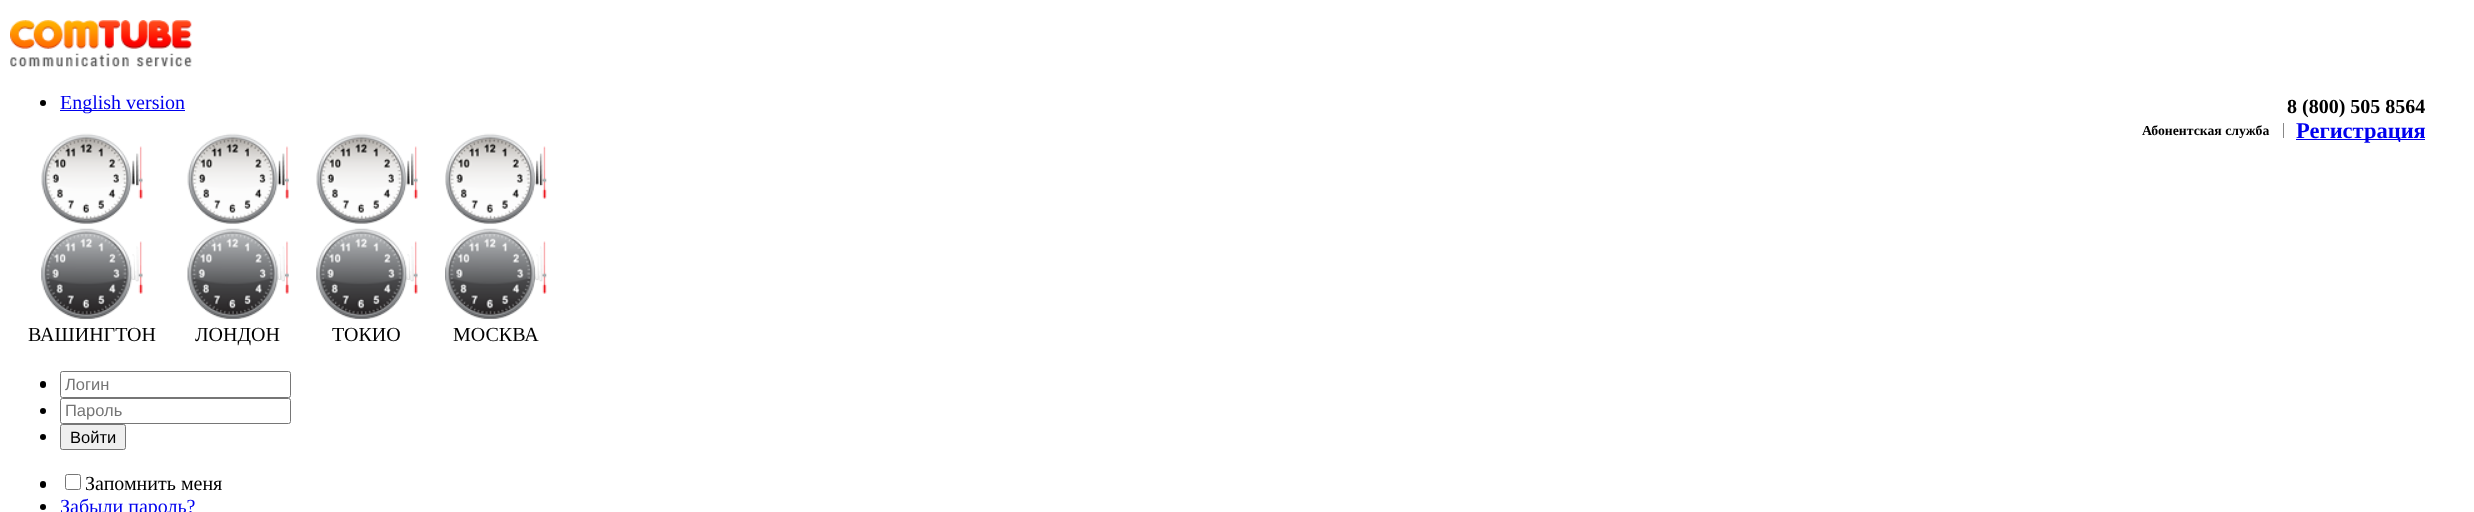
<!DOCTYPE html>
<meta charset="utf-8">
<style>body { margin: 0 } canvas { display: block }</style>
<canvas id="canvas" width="2474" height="512"></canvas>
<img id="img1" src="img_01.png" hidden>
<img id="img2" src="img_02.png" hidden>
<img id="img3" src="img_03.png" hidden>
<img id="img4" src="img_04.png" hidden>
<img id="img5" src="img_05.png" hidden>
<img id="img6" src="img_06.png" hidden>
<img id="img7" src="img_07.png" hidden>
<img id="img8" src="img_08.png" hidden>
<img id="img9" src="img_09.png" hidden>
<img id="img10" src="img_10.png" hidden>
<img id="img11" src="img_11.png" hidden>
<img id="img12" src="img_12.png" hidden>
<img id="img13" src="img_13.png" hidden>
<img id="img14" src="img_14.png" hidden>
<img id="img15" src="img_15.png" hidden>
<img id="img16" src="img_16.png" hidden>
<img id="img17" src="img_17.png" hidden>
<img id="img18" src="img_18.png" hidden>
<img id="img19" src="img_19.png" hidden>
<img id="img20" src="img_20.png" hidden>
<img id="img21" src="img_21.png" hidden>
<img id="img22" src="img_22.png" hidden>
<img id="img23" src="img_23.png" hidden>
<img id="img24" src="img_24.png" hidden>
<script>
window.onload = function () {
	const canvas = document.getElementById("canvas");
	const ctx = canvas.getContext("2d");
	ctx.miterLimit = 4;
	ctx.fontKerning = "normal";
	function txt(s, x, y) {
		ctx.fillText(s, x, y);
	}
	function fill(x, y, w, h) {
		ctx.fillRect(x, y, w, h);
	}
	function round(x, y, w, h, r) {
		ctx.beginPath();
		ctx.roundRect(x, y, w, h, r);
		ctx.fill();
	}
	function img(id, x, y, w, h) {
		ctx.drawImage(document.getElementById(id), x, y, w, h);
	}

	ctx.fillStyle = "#FFFFFF";
	fill(0, 0, 2474, 512);
	img("img1", 10, 20, 182, 47);
	ctx.fillStyle = "#000000";
	ctx.beginPath();
	ctx.arc(43, 103, 3, 0, Math.PI * 2);
	ctx.fill();
	ctx.fillStyle = "#0000EE";
	fill(60, 110, 125, 1);
	ctx.fillStyle = "#888888";
	fill(2283, 123, 1, 15);
	ctx.fillStyle = "#0000EE";
	fill(2296, 139, 129, 1);
	img("img2", 41, 133, 91, 91);
	img("img3", 131, 160, 4, 26);
	img("img4", 136, 153, 3, 34);
	img("img5", 138, 146, 5, 53);
	img("img6", 41, 228, 91, 91);
	img("img7", 131, 254, 4, 26);
	img("img8", 135, 246, 4, 36);
	img("img9", 138, 241, 5, 53);
	img("img10", 187, 133, 91, 91);
	img("img11", 277, 160, 5, 26);
	img("img12", 282, 153, 3, 34);
	img("img13", 285, 146, 4, 53);
	img("img14", 187, 228, 91, 91);
	img("img15", 277, 254, 5, 26);
	img("img16", 281, 246, 4, 36);
	img("img13", 285, 241, 4, 53);
	img("img2", 316, 133, 91, 91);
	img("img3", 406, 160, 4, 26);
	img("img4", 411, 153, 3, 34);
	img("img5", 413, 146, 5, 53);
	img("img6", 316, 228, 91, 91);
	img("img7", 406, 254, 4, 26);
	img("img8", 410, 246, 4, 36);
	img("img9", 413, 241, 5, 53);
	img("img17", 445, 133, 90, 91);
	img("img18", 535, 160, 4, 26);
	img("img19", 539, 153, 4, 34);
	img("img20", 542, 146, 5, 53);
	img("img21", 445, 228, 90, 91);
	img("img22", 535, 254, 4, 27);
	img("img23", 539, 246, 4, 36);
	img("img24", 542, 241, 5, 53);
	ctx.fillStyle = "#000000";
	round(40, 381, 6, 7, 3);
	ctx.beginPath();
	ctx.roundRect(60.5, 371.5, 230, 26, 2);
	ctx.strokeStyle = "#767676";
	ctx.stroke();
	ctx.beginPath();
	ctx.arc(43, 411, 3, 0, Math.PI * 2);
	ctx.fill();
	ctx.beginPath();
	ctx.roundRect(60.5, 398.5, 230, 25, 2);
	ctx.stroke();
	ctx.beginPath();
	ctx.arc(43, 437, 3, 0, Math.PI * 2);
	ctx.fill();
	ctx.fillStyle = "#EFEFEF";
	ctx.beginPath();
	ctx.roundRect(60.5, 424.5, 65, 25, 2);
	ctx.fill();
	ctx.stroke();
	ctx.fillStyle = "#000000";
	round(40, 481, 6, 7, 3);
	ctx.beginPath();
	ctx.roundRect(65.5, 474.5, 15, 15, 2);
	ctx.stroke();
	ctx.beginPath();
	ctx.arc(43, 507, 3, 0, Math.PI * 2);
	ctx.fill();
	ctx.font = "20px Liberation Serif";
	ctx.fillStyle = "#0000EE";
	txt("English version", 60, 109);
	ctx.font = "bold 20px Liberation Serif";
	ctx.fillStyle = "#000000";
	txt("8 (800) 505 8564", 2287, 113);
	ctx.font = "bold 13.75px Liberation Serif";
	txt("Абонентская служба", 2142, 135);
	ctx.font = "bold 22.5px Liberation Serif";
	ctx.fillStyle = "#0000EE";
	txt("Регистрация", 2296, 138);
	ctx.font = "20px Liberation Serif";
	ctx.fillStyle = "#000000";
	txt("ВАШИНГТОН", 28, 341);
	txt("ЛОНДОН", 195, 341);
	txt("ТОКИО", 332, 341);
	txt("МОСКВА", 453, 341);
	ctx.font = "16.5px Liberation Sans";
	ctx.fillStyle = "#757575";
	txt("Логин", 65, 390);
	txt("Пароль", 65, 416);
	ctx.fillStyle = "#000000";
	txt("Войти", 70, 443);
	ctx.font = "20px Liberation Serif";
	txt("Запомнить меня", 85, 490);
	ctx.fillStyle = "#0000EE";
	txt("Забыли пароль?", 60, 513);
};
</script>
